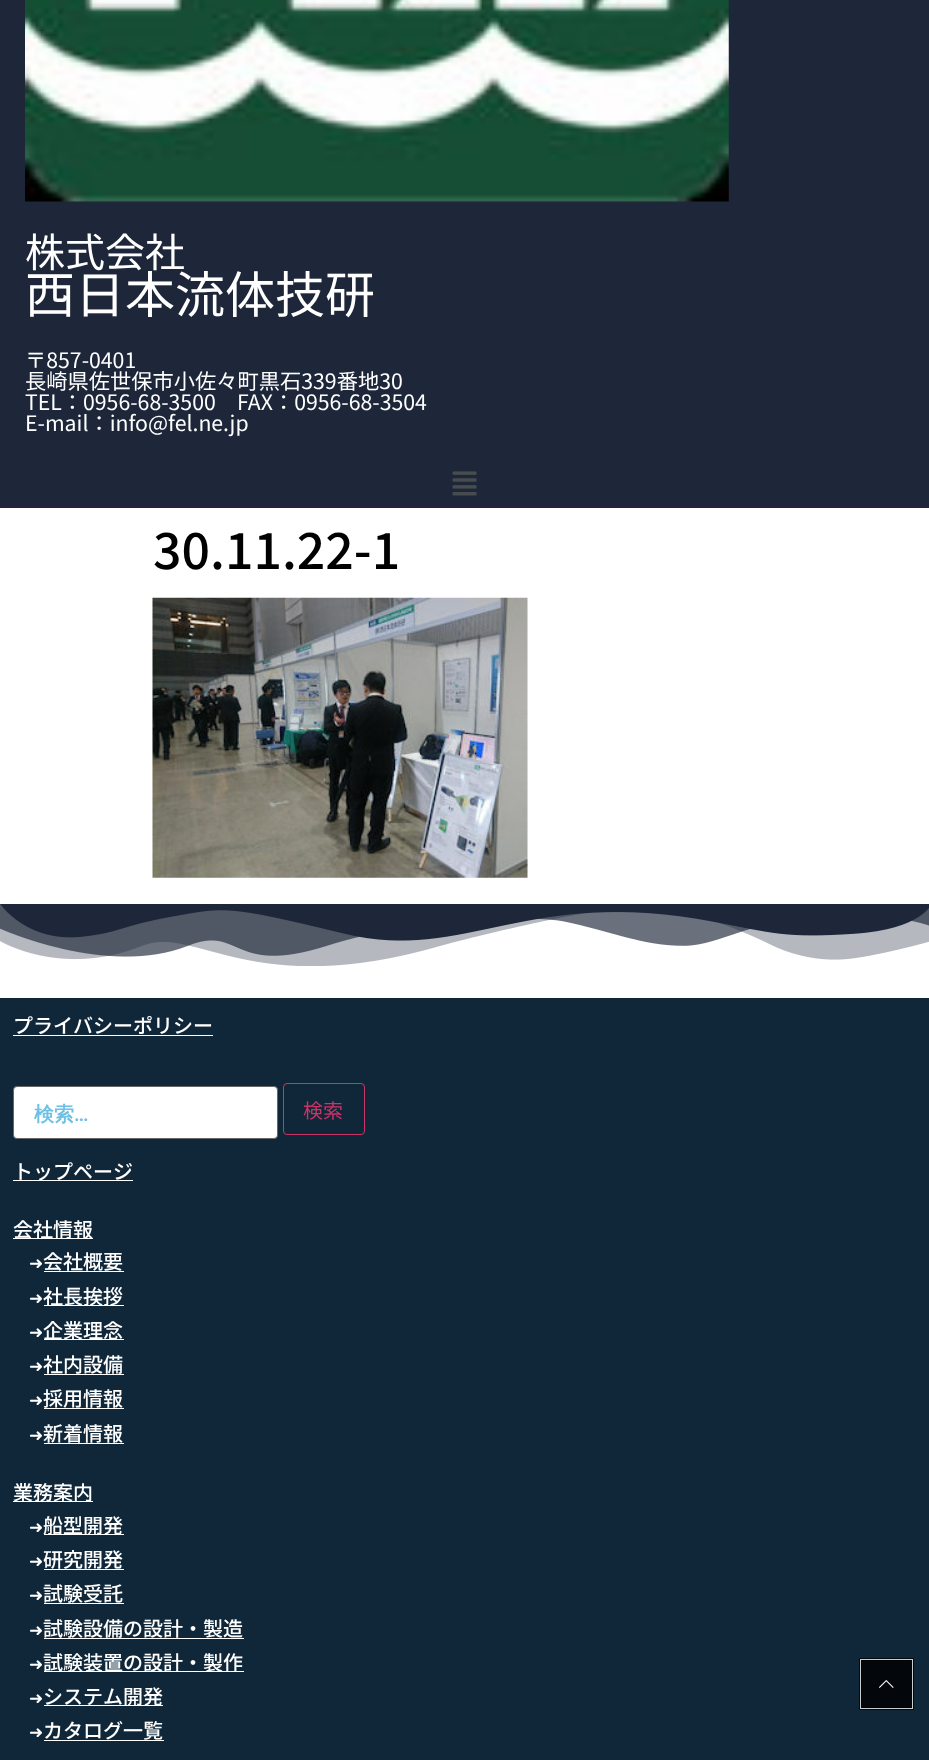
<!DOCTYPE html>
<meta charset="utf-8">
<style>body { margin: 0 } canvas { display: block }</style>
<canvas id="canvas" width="929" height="1760"></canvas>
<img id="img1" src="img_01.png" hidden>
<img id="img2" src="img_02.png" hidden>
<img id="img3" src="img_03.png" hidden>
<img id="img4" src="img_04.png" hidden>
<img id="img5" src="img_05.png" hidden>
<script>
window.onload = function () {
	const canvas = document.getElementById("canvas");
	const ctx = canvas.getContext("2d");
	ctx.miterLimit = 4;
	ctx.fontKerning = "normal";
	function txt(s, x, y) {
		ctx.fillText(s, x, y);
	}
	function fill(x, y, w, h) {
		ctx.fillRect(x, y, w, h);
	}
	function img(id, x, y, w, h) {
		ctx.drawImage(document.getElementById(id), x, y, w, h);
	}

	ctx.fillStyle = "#FFFFFF";
	fill(0, 0, 929, 1760);
	ctx.fillStyle = "#1D2739";
	fill(0, 0, 929, 508);
	img("img1", 25, 0, 704, 202);
	img("img2", 452, 471, 25, 25);
	img("img3", 152, 597, 376, 281);
	img("img4", 0, 904, 929, 62);
	ctx.fillStyle = "#102739";
	fill(0, 998, 929, 762);
	ctx.fillStyle = "#FFFFFF";
	fill(13, 1035, 200, 1);
	ctx.beginPath();
	ctx.roundRect(13.5, 1086.5, 264, 52, 3.5);
	ctx.fill();
	ctx.strokeStyle = "#666666";
	ctx.stroke();
	ctx.beginPath();
	ctx.roundRect(283.5, 1083.5, 81, 51, 3.5);
	ctx.strokeStyle = "#CC3366";
	ctx.stroke();
	fill(13, 1180, 120, 1);
	fill(13, 1238, 80, 1);
	fill(44, 1271, 80, 1);
	fill(44, 1305, 80, 1);
	fill(44, 1339, 80, 1);
	fill(44, 1374, 80, 1);
	fill(44, 1408, 80, 1);
	fill(44, 1443, 80, 1);
	fill(13, 1501, 80, 1);
	fill(44, 1534, 80, 1);
	fill(44, 1569, 80, 1);
	fill(44, 1603, 80, 1);
	fill(44, 1638, 200, 1);
	fill(44, 1671, 200, 1);
	fill(44, 1705, 119, 1);
	fill(44, 1740, 120, 1);
	ctx.strokeStyle = "#03080B";
	ctx.lineWidth = 3;
	ctx.strokeRect(860.5, 1659.5, 52, 49);
	ctx.strokeStyle = "#CDCECE";
	ctx.lineWidth = 1;
	ctx.strokeRect(860.5, 1659.5, 52, 49);
	ctx.fillStyle = "rgba(0, 0, 0, 0.8)";
	fill(861, 1660, 50, 48);
	img("img5", 879, 1680, 15, 8);
	ctx.font = "40px Noto Sans JP";
	ctx.fillStyle = "#FFFFFF";
	txt("株式会社", 25, 267);
	ctx.font = "50px Noto Sans JP";
	txt("西日本流体技研", 25, 313);
	ctx.font = "21.25px Noto Sans JP";
	txt("〒857-0401", 25, 368);
	txt("長崎県佐世保市小佐々町黒石339番地30", 25, 389);
	txt("TEL：0956-68-3500　FAX：0956-68-3504", 25, 410);
	txt("E-mail：info@fel.ne.jp", 25, 431);
	ctx.font = "500 50px Noto Sans JP";
	ctx.fillStyle = "#000000";
	txt("30.11.22-1", 153, 569);
	ctx.font = "500 20px Noto Sans JP";
	ctx.fillStyle = "#FFFFFF";
	txt("プライバシーポリシー", 13, 1033);
	ctx.font = "bold 20px WenQuanYi Zen Hei";
	ctx.fillStyle = "#6EC1E4";
	txt("検索", 34, 1121);
	ctx.font = "600 20px Roboto";
	txt("…", 74, 1121);
	ctx.font = "20px Noto Sans JP";
	ctx.fillStyle = "#CC3366";
	txt("検索", 303, 1118);
	ctx.font = "500 20px Noto Sans JP";
	ctx.fillStyle = "#FFFFFF";
	txt("トップページ", 13, 1179);
	txt("会社情報", 13, 1237);
	ctx.font = "17px DejaVu Sans";
	txt("➜", 29, 1269);
	ctx.font = "500 20px Noto Sans JP";
	txt("会社概要", 43, 1269);
	ctx.font = "17px DejaVu Sans";
	txt("➜", 29, 1304);
	ctx.font = "500 20px Noto Sans JP";
	txt("社長挨拶", 43, 1304);
	ctx.font = "17px DejaVu Sans";
	txt("➜", 29, 1338);
	ctx.font = "500 20px Noto Sans JP";
	txt("企業理念", 43, 1338);
	ctx.font = "17px DejaVu Sans";
	txt("➜", 29, 1372);
	ctx.font = "500 20px Noto Sans JP";
	txt("社内設備", 43, 1372);
	ctx.font = "17px DejaVu Sans";
	txt("➜", 29, 1406);
	ctx.font = "500 20px Noto Sans JP";
	txt("採用情報", 43, 1406);
	ctx.font = "17px DejaVu Sans";
	txt("➜", 29, 1441);
	ctx.font = "500 20px Noto Sans JP";
	txt("新着情報", 43, 1441);
	txt("業務案内", 13, 1500);
	ctx.font = "17px DejaVu Sans";
	txt("➜", 29, 1533);
	ctx.font = "500 20px Noto Sans JP";
	txt("船型開発", 43, 1533);
	ctx.font = "17px DejaVu Sans";
	txt("➜", 29, 1567);
	ctx.font = "500 20px Noto Sans JP";
	txt("研究開発", 43, 1567);
	ctx.font = "17px DejaVu Sans";
	txt("➜", 29, 1601);
	ctx.font = "500 20px Noto Sans JP";
	txt("試験受託", 43, 1601);
	ctx.font = "17px DejaVu Sans";
	txt("➜", 29, 1636);
	ctx.font = "500 20px Noto Sans JP";
	txt("試験設備の設計・製造", 43, 1636);
	ctx.font = "17px DejaVu Sans";
	txt("➜", 29, 1670);
	ctx.font = "500 20px Noto Sans JP";
	txt("試験装置の設計・製作", 43, 1670);
	ctx.font = "17px DejaVu Sans";
	txt("➜", 29, 1704);
	ctx.font = "500 20px Noto Sans JP";
	txt("システム開発", 43, 1704);
	ctx.font = "17px DejaVu Sans";
	txt("➜", 29, 1738);
	ctx.font = "500 20px Noto Sans JP";
	txt("カタログ一覧", 43, 1738);
};
</script>
